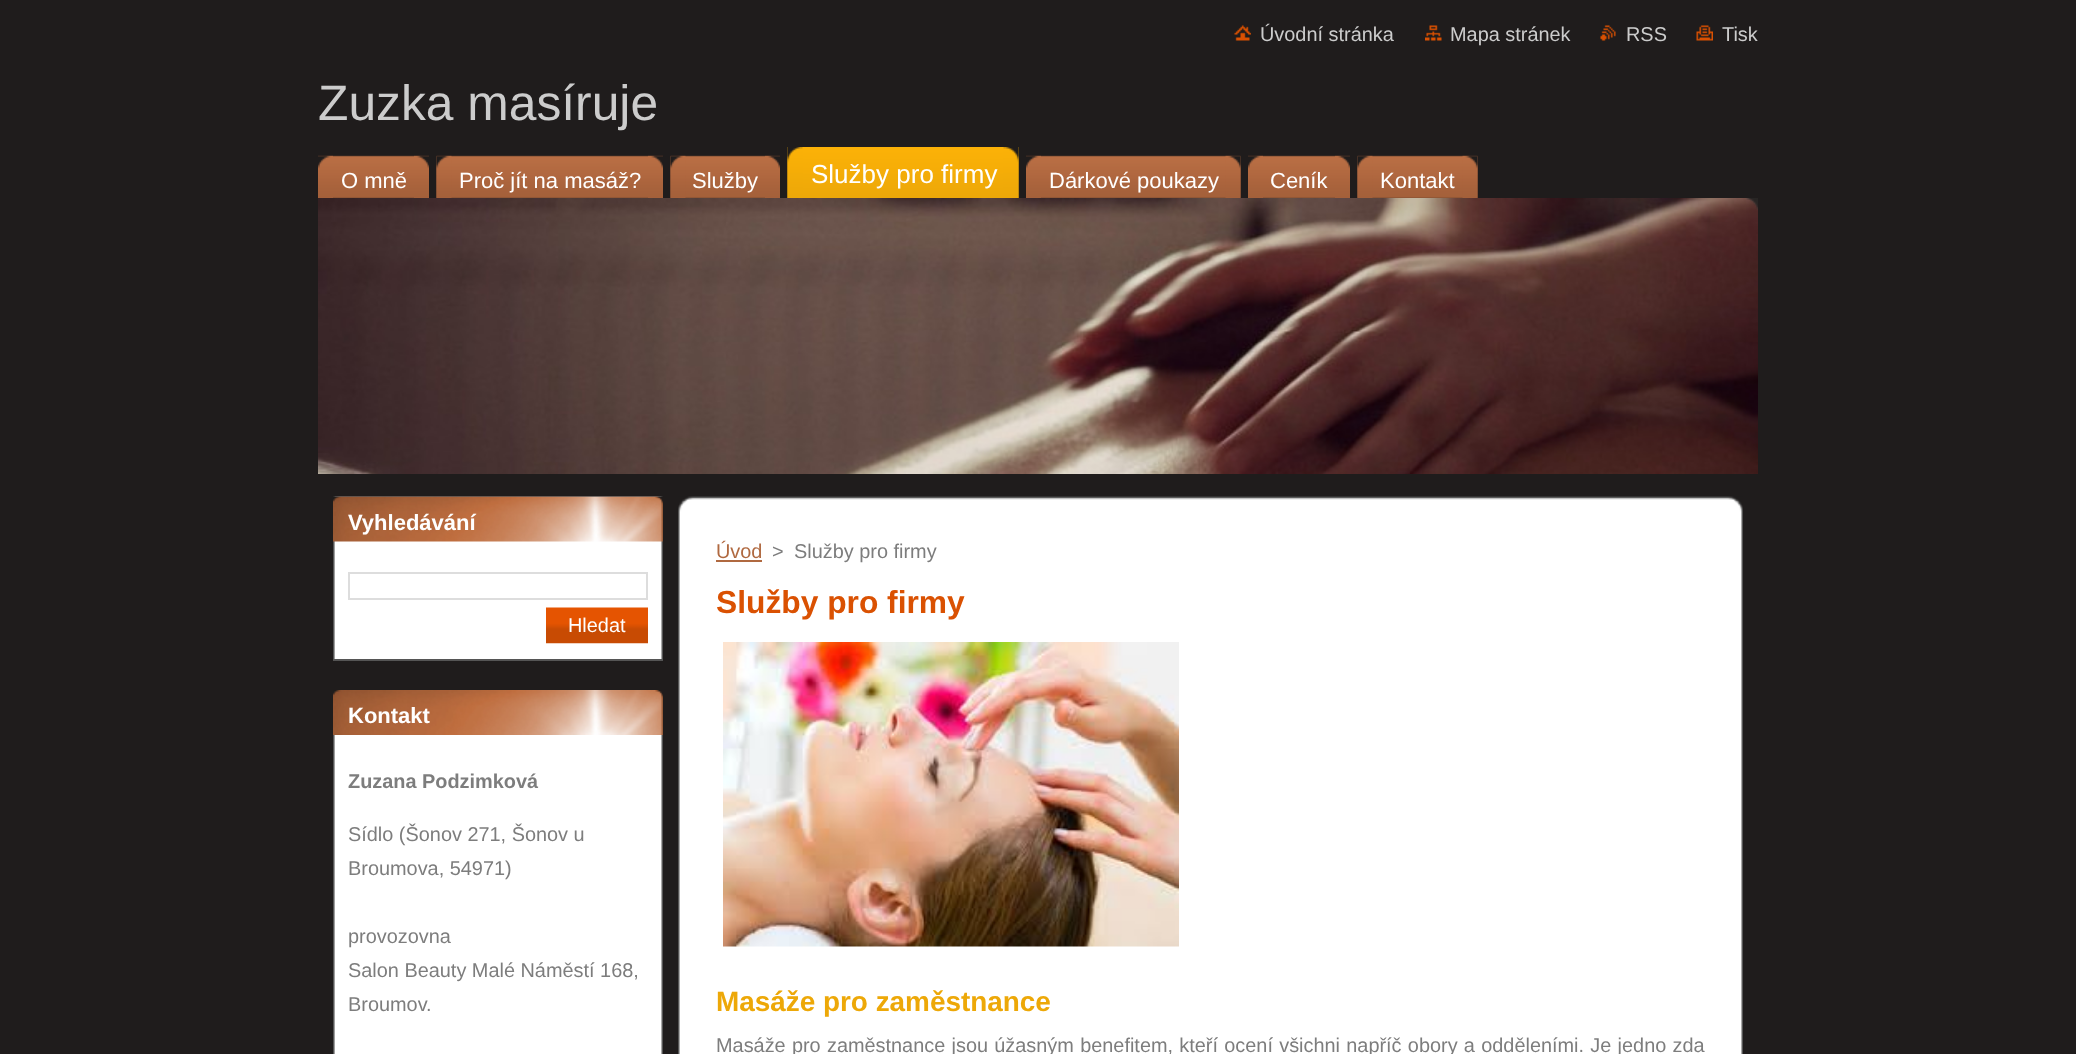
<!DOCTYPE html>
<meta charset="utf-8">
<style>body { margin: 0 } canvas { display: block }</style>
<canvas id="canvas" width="2076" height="1054"></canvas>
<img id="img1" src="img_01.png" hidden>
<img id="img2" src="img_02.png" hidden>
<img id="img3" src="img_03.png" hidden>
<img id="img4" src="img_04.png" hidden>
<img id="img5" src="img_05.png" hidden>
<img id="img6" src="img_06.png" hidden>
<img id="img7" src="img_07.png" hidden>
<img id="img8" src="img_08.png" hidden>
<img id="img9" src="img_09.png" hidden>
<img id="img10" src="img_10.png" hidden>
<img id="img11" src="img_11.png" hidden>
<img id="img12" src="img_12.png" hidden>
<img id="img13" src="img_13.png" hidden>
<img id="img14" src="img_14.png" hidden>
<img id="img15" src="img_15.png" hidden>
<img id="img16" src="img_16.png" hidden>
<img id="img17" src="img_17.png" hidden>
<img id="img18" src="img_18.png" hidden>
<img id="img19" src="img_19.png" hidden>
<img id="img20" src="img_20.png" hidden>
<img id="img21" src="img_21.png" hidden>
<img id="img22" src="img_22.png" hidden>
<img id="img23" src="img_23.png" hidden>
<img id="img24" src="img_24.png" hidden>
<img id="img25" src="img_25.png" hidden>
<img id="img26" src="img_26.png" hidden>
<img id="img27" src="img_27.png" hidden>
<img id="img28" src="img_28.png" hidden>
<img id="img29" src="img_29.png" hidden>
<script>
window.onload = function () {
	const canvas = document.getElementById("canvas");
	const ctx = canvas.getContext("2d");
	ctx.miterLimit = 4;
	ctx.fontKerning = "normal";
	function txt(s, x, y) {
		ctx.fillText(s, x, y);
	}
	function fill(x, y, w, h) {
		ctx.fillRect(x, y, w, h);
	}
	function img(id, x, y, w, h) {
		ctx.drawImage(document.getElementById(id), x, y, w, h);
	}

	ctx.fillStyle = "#1F1C1C";
	fill(0, 0, 2076, 1054);
	img("img1", 1234, 25, 17, 16);
	img("img2", 1425, 25, 17, 16);
	img("img3", 1600, 25, 16, 16);
	img("img4", 1696, 25, 17, 16);
	img("img5", 318, 155, 111, 43);
	img("img6", 318, 155, 15, 43);
	img("img7", 414, 155, 15, 43);
	img("img8", 436, 155, 227, 43);
	img("img9", 436, 155, 16, 43);
	img("img10", 648, 155, 15, 43);
	img("img11", 670, 155, 110, 43);
	img("img9", 670, 155, 16, 43);
	img("img10", 765, 155, 15, 43);
	img("img12", 787, 147, 232, 51);
	img("img13", 787, 147, 16, 51);
	img("img14", 1003, 147, 16, 51);
	img("img15", 1026, 155, 215, 43);
	img("img6", 1026, 155, 15, 43);
	img("img16", 1225, 155, 16, 43);
	img("img17", 1248, 155, 102, 43);
	img("img6", 1248, 155, 15, 43);
	img("img7", 1335, 155, 15, 43);
	img("img18", 1357, 155, 121, 43);
	img("img9", 1357, 155, 16, 43);
	img("img19", 1462, 155, 16, 43);
	img("img20", 318, 198, 1440, 276);
	img("img21", 1746, 198, 12, 12);
	img("img22", 333, 496, 330, 163);
	ctx.fillStyle = "#555555";
	fill(333, 659, 330, 2);
	img("img23", 333, 496, 330, 46);
	ctx.strokeStyle = "#DDDDDD";
	ctx.lineWidth = 2;
	ctx.strokeRect(349, 573, 298, 26);
	img("img24", 546, 607, 102, 37);
	img("img25", 333, 735, 330, 319);
	img("img26", 333, 690, 330, 45);
	img("img27", 678, 496, 1065, 75);
	img("img28", 678, 571, 1065, 483);
	ctx.fillStyle = "#B06940";
	fill(716, 560, 46, 2);
	img("img29", 723, 642, 456, 305);
	ctx.font = "19.9px Liberation Sans";
	ctx.fillStyle = "#CCCCCC";
	txt("Úvodní stránka", 1260, 41);
	txt("Mapa stránek", 1450, 41);
	txt("RSS", 1626, 41);
	txt("Tisk", 1722, 41);
	ctx.font = "49.75px Liberation Sans";
	txt("Zuzka masíruje", 318, 120);
	ctx.font = "22px Liberation Sans";
	ctx.fillStyle = "#FFFFFF";
	txt("O mně", 341, 188);
	txt("Proč jít na masáž?", 459, 188);
	txt("Služby", 692, 188);
	ctx.font = "26px Liberation Sans";
	txt("Služby pro firmy", 811, 183);
	ctx.font = "22px Liberation Sans";
	txt("Dárkové poukazy", 1049, 188);
	txt("Ceník", 1270, 188);
	txt("Kontakt", 1380, 188);
	ctx.font = "bold 22px Liberation Sans";
	txt("Vyhledávání", 348, 530);
	ctx.font = "19.9px Liberation Sans";
	txt("Hledat", 568, 632);
	ctx.font = "bold 22px Liberation Sans";
	txt("Kontakt", 348, 723);
	ctx.font = "bold 19.9px Liberation Sans";
	ctx.fillStyle = "#7D7D7D";
	txt("Zuzana Podzimková", 348, 788);
	ctx.font = "19.9px Liberation Sans";
	txt("Sídlo (Šonov 271, Šonov u", 348, 841);
	txt("Broumova, 54971)", 348, 875);
	txt("provozovna", 348, 943);
	txt("Salon Beauty Malé Náměstí 168,", 348, 977);
	txt("Broumov.", 348, 1011);
	ctx.fillStyle = "#B06940";
	txt("Úvod", 716, 558);
	ctx.fillStyle = "#7D7D7D";
	txt(">", 772, 558);
	txt("Služby pro firmy", 794, 558);
	ctx.font = "bold 31.75px Liberation Sans";
	ctx.fillStyle = "#DA5102";
	txt("Služby pro firmy", 716, 613);
	ctx.font = "bold 27.9px Liberation Sans";
	ctx.fillStyle = "#EDA808";
	txt("Masáže pro zaměstnance", 716, 1011);
	ctx.wordSpacing = "0.75px";
	ctx.font = "19.9px Liberation Sans";
	ctx.fillStyle = "#7D7D7D";
	txt("Masáže pro zaměstnance jsou úžasným benefitem, kteří ocení všichni napříč obory a odděleními. Je jedno zda", 716, 1052);
};
</script>
